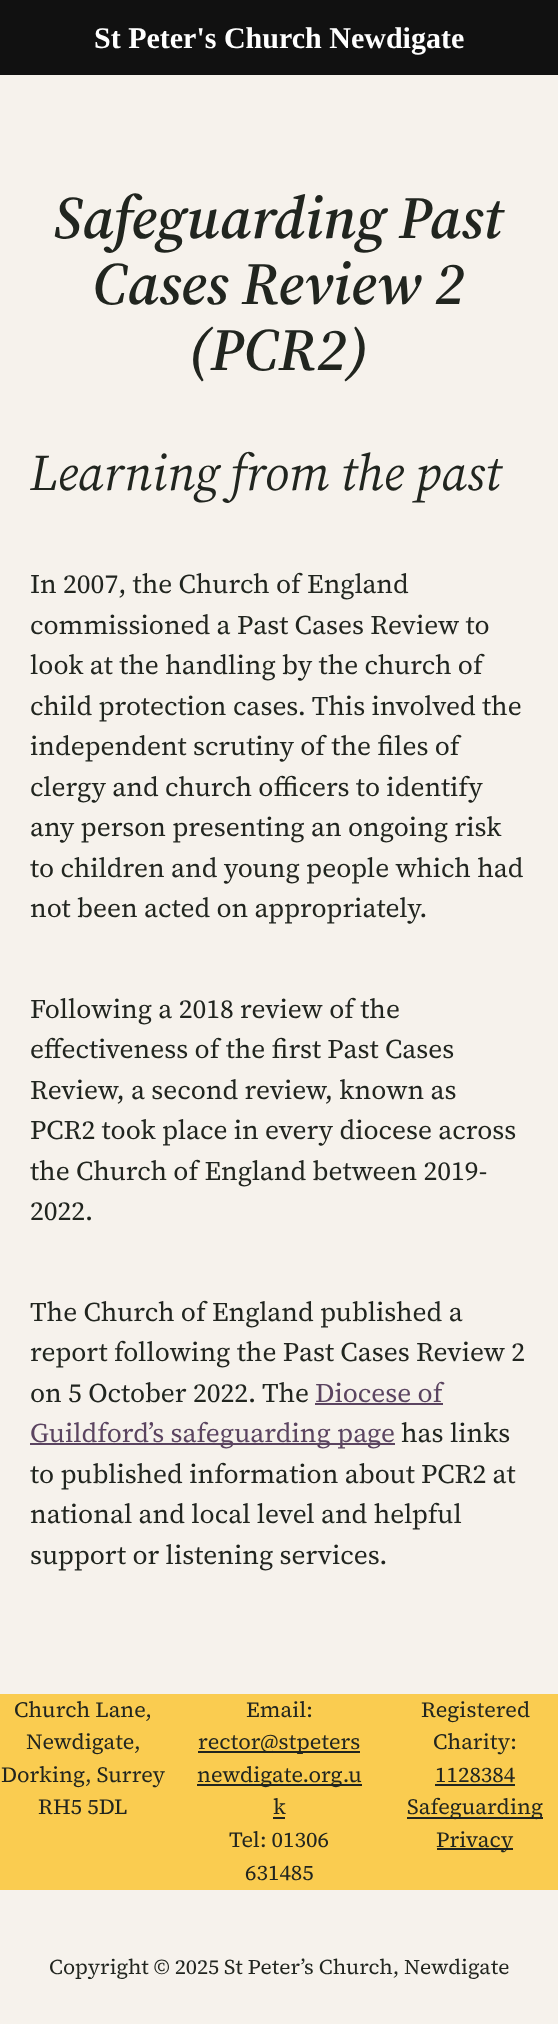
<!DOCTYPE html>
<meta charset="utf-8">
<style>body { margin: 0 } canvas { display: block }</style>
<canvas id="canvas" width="558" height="2024"></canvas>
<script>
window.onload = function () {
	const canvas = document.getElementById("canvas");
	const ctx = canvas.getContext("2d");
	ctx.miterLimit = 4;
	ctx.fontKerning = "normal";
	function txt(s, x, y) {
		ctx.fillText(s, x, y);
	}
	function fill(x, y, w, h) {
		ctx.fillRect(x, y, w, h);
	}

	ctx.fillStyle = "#F6F2EC";
	fill(0, 0, 558, 2024);
	ctx.fillStyle = "#111111";
	fill(0, 0, 558, 75);
	ctx.fillStyle = "#5B4460";
	fill(315, 1403, 128, 2);
	fill(30, 1443, 365, 2);
	ctx.fillStyle = "#FACC50";
	fill(0, 1694, 558, 196);
	ctx.fillStyle = "#21251F";
	fill(198, 1751, 162, 2);
	fill(197, 1784, 165, 2);
	fill(273, 1817, 12, 2);
	fill(435, 1784, 80, 2);
	fill(407, 1817, 136, 2);
	fill(437, 1848, 76, 2);
	ctx.font = "bold 30px Liberation Serif";
	ctx.fillStyle = "#FFFFFF";
	txt("St Peter's Church Newdigate", 94, 48);
	ctx.font = "italic 600 60px 'Source Serif 4'";
	ctx.fillStyle = "#21251F";
	txt("Safeguarding Past", 54, 238);
	txt("Cases Review 2", 93, 304);
	txt("(PCR2)", 189, 370);
	ctx.font = "italic 51px 'Source Serif 4'";
	txt("Learning from the past", 30, 490);
	ctx.font = "27px 'Source Serif 4'";
	txt("In 2007, the Church of England", 30, 593);
	txt("commissioned a Past Cases Review to", 30, 634);
	txt("look at the handling by the church of", 30, 674);
	txt("child protection cases. This involved the", 30, 715);
	txt("independent scrutiny of the files of", 30, 755);
	txt("clergy and church officers to identify", 30, 796);
	txt("any person presenting an ongoing risk", 30, 836);
	txt("to children and young people which had", 30, 877);
	txt("not been acted on appropriately.", 30, 917);
	txt("Following a 2018 review of the", 30, 1018);
	txt("effectiveness of the first Past Cases", 30, 1058);
	txt("Review, a second review, known as", 30, 1099);
	txt("PCR2 took place in every diocese across", 30, 1139);
	txt("the Church of England between 2019-", 30, 1180);
	txt("2022.", 30, 1220);
	txt("The Church of England published a", 30, 1321);
	txt("report following the Past Cases Review 2", 30, 1361);
	txt("on 5 October 2022. The", 30, 1402);
	ctx.fillStyle = "#5B4460";
	txt("Diocese of", 315, 1402);
	txt("Guildford’s safeguarding page", 30, 1442);
	ctx.fillStyle = "#21251F";
	txt("has links", 401, 1442);
	txt("to published information about PCR2 at", 30, 1483);
	txt("national and local level and helpful", 30, 1523);
	txt("support or listening services.", 30, 1564);
	ctx.font = "21.75px 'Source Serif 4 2'";
	txt("Church Lane,", 14, 1717);
	txt("Newdigate,", 26, 1749);
	txt("Dorking, Surrey", 1, 1782);
	txt("RH5 5DL", 38, 1814);
	txt("Email:", 246, 1717);
	txt("rector@stpeters", 198, 1749);
	txt("newdigate.org.u", 197, 1782);
	txt("k", 273, 1814);
	txt("Tel: 01306", 229, 1847);
	txt("631485", 245, 1880);
	txt("Registered", 421, 1717);
	txt("Charity:", 433, 1749);
	txt("1128384", 435, 1782);
	txt("Safeguarding", 407, 1814);
	txt("Privacy", 436, 1847);
	ctx.font = "21px 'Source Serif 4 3'";
	txt("Copyright © 2025 St Peter’s Church, Newdigate", 49, 1974);
};
</script>
